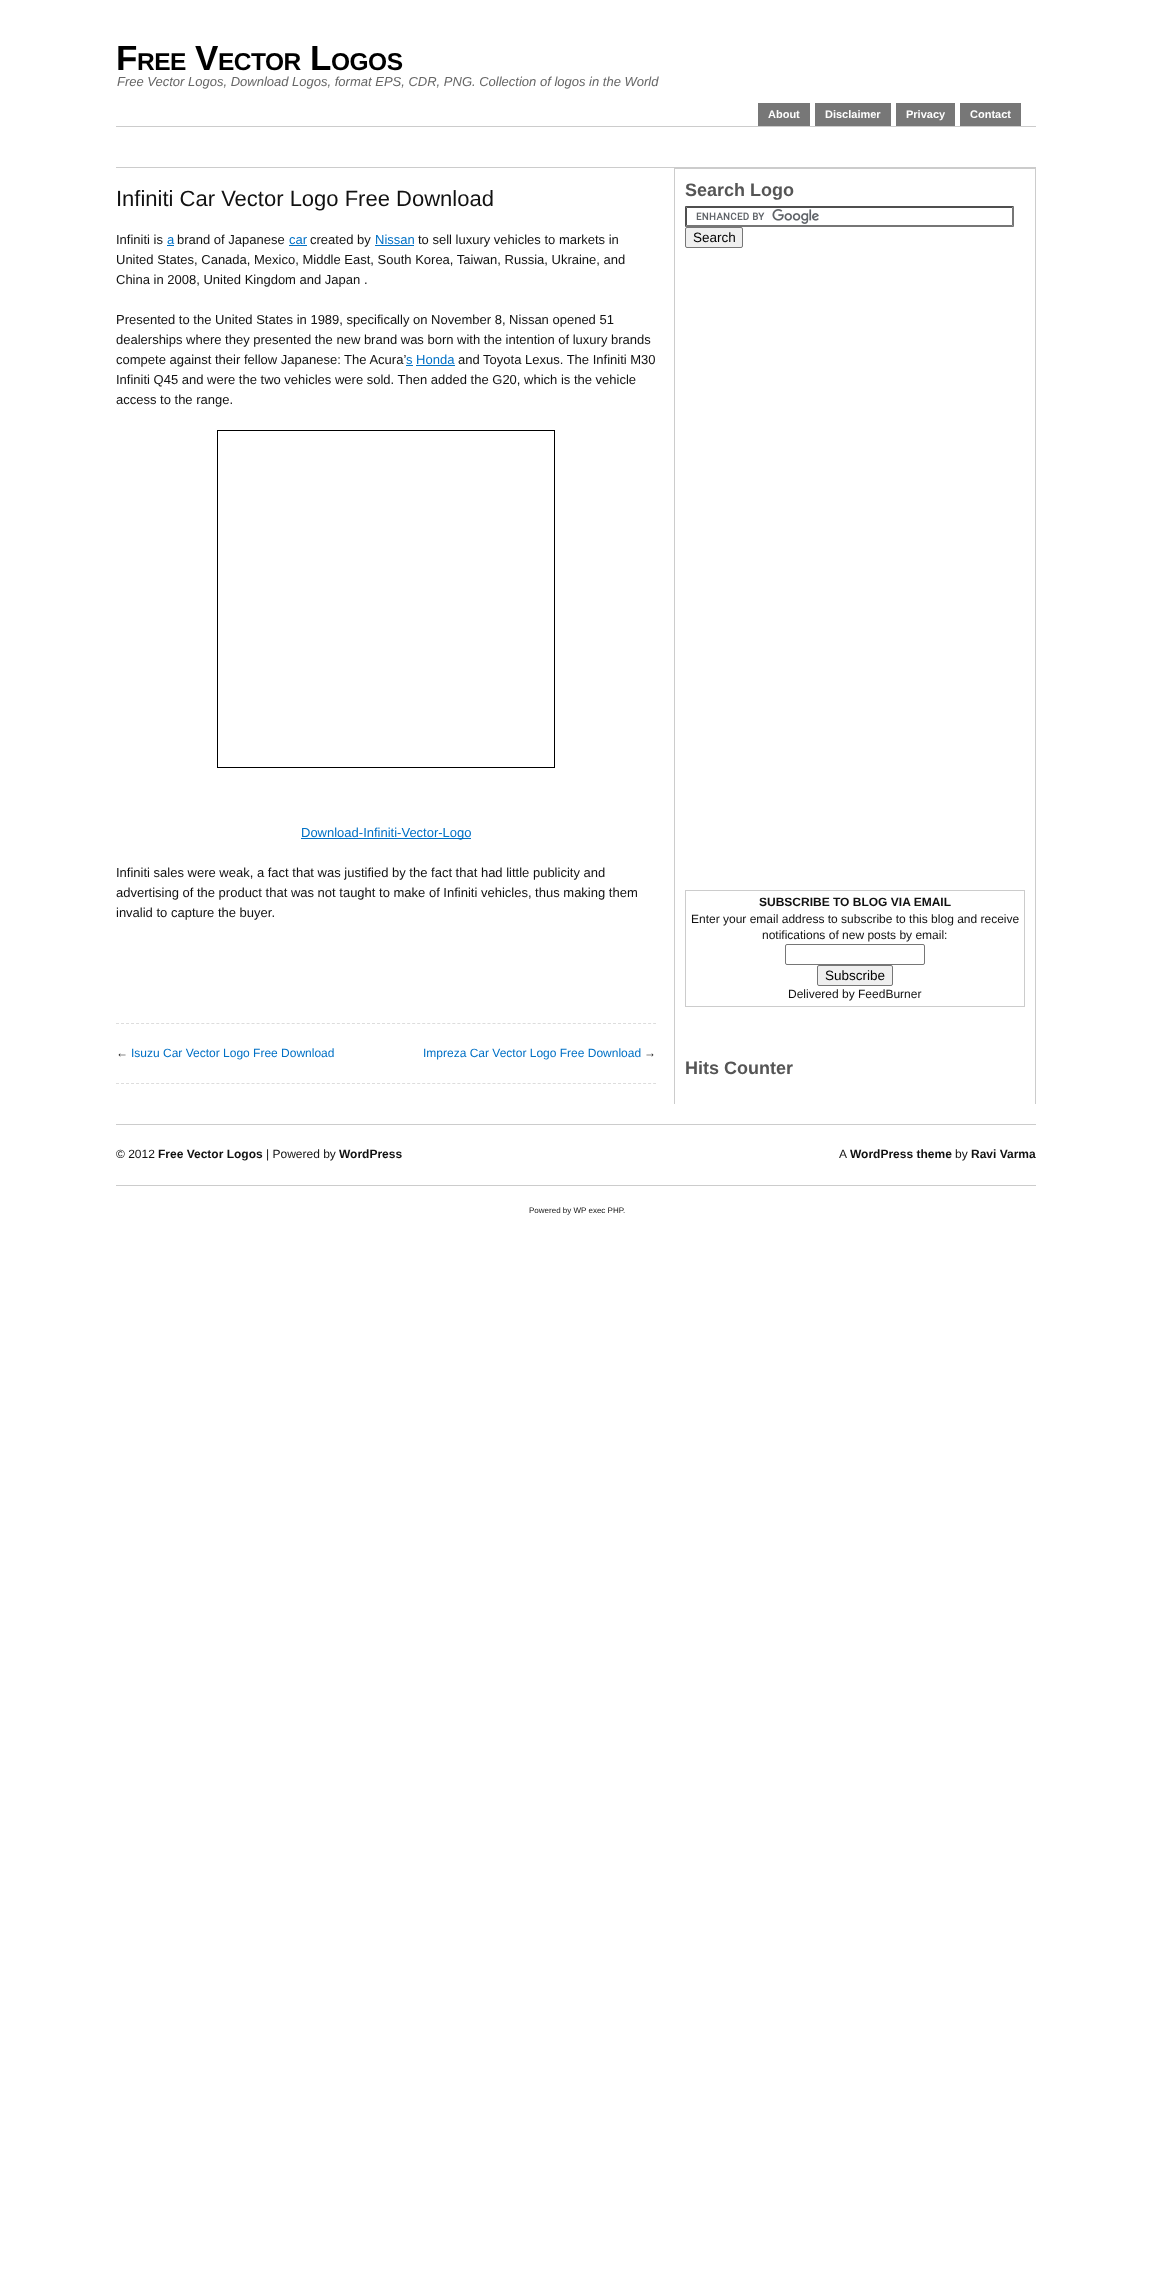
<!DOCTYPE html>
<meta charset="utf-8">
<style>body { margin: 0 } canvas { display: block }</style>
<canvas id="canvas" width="1154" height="2269"></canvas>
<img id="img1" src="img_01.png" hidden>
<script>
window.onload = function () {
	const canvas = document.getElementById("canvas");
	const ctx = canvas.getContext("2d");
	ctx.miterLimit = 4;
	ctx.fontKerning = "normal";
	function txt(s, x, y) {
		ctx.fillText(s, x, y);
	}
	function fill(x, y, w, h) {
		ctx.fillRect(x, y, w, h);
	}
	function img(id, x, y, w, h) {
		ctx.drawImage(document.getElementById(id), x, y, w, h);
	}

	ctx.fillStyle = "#FFFFFF";
	fill(0, 0, 1154, 2269);
	ctx.fillStyle = "#777777";
	fill(758, 103, 52, 23);
	fill(815, 103, 76, 23);
	fill(896, 103, 59, 23);
	fill(960, 103, 61, 23);
	ctx.fillStyle = "#CCCCCC";
	fill(116, 126, 920, 1);
	fill(116, 167, 920, 1);
	ctx.beginPath();
	ctx.moveTo(116, 1023.5);
	ctx.lineTo(656, 1023.5);
	ctx.strokeStyle = "#DDDDDD";
	ctx.setLineDash([3, 2.02]);
	ctx.stroke();
	ctx.fillStyle = "#0070C5";
	fill(167, 245, 7, 1);
	fill(289, 245, 18, 1);
	fill(375, 245, 39, 1);
	fill(406, 365, 7, 1);
	fill(416, 365, 39, 1);
	ctx.strokeStyle = "#000000";
	ctx.setLineDash([]);
	ctx.strokeRect(217.5, 430.5, 337, 337);
	fill(301, 838, 170, 1);
	ctx.beginPath();
	ctx.moveTo(116, 1083.5);
	ctx.lineTo(656, 1083.5);
	ctx.strokeStyle = "#DDDDDD";
	ctx.setLineDash([3, 2.02]);
	ctx.stroke();
	ctx.fillStyle = "#CCCCCC";
	fill(674, 168, 362, 1);
	fill(1035, 168, 1, 936);
	fill(674, 168, 1, 936);
	img("img1", 696, 209, 123, 15);
	ctx.fillStyle = "#4F4F4F";
	ctx.beginPath();
	ctx.moveTo(685, 206);
	ctx.lineTo(1014, 206);
	ctx.lineTo(1012, 208);
	ctx.lineTo(687, 208);
	ctx.closePath();
	ctx.fill();
	ctx.fillStyle = "#767676";
	ctx.beginPath();
	ctx.moveTo(1014, 206);
	ctx.lineTo(1014, 227);
	ctx.lineTo(1012, 225);
	ctx.lineTo(1012, 208);
	ctx.closePath();
	ctx.fill();
	ctx.beginPath();
	ctx.moveTo(1014, 227);
	ctx.lineTo(685, 227);
	ctx.lineTo(687, 225);
	ctx.lineTo(1012, 225);
	ctx.closePath();
	ctx.fill();
	ctx.fillStyle = "#4F4F4F";
	ctx.beginPath();
	ctx.moveTo(685, 227);
	ctx.lineTo(685, 206);
	ctx.lineTo(687, 208);
	ctx.lineTo(687, 225);
	ctx.closePath();
	ctx.fill();
	ctx.fillStyle = "#EFEFEF";
	ctx.beginPath();
	ctx.roundRect(685.5, 227.5, 57, 20, 1.5);
	ctx.fill();
	ctx.strokeStyle = "#767676";
	ctx.setLineDash([]);
	ctx.stroke();
	ctx.strokeStyle = "#CCCCCC";
	ctx.strokeRect(685.5, 890.5, 339, 116);
	ctx.beginPath();
	ctx.roundRect(785.5, 944.5, 139, 20, 1.5);
	ctx.strokeStyle = "#767676";
	ctx.stroke();
	ctx.beginPath();
	ctx.roundRect(817.5, 965.5, 75, 20, 1.5);
	ctx.fill();
	ctx.stroke();
	ctx.fillStyle = "#CCCCCC";
	fill(116, 1124, 920, 1);
	fill(116, 1185, 920, 1);
	ctx.letterSpacing = "-0.5px";
	ctx.font = "bold 35px Liberation Sans";
	ctx.fillStyle = "#000000";
	txt("F", 116, 70);
	ctx.font = "bold 24.5px Liberation Sans";
	txt("REE", 137, 70);
	ctx.font = "bold 35px Liberation Sans";
	txt("V", 195, 70);
	ctx.font = "bold 24.5px Liberation Sans";
	txt("ECTOR", 218, 70);
	ctx.font = "bold 35px Liberation Sans";
	txt("L", 310, 70);
	ctx.font = "bold 24.5px Liberation Sans";
	txt("OGOS", 331, 70);
	ctx.letterSpacing = "0px";
	ctx.font = "italic 13px Liberation Sans";
	ctx.fillStyle = "#666666";
	txt("Free Vector Logos, Download Logos, format EPS, CDR, PNG. Collection of logos in the World", 117, 86);
	ctx.font = "bold 11px Liberation Sans";
	ctx.fillStyle = "#FFFFFF";
	txt("About", 768, 118);
	txt("Disclaimer", 825, 118);
	txt("Privacy", 906, 118);
	txt("Contact", 970, 118);
	ctx.font = "22px Liberation Sans";
	ctx.fillStyle = "#111111";
	txt("Infiniti Car Vector Logo Free Download", 116, 206);
	ctx.font = "13px Liberation Sans";
	txt("Infiniti is", 116, 244);
	ctx.fillStyle = "#0070C5";
	txt("a", 167, 244);
	ctx.fillStyle = "#111111";
	txt("brand of Japanese", 177, 244);
	ctx.fillStyle = "#0070C5";
	txt("car", 289, 244);
	ctx.fillStyle = "#111111";
	txt("created by", 310, 244);
	ctx.fillStyle = "#0070C5";
	txt("Nissan", 375, 244);
	ctx.fillStyle = "#111111";
	txt("to sell luxury vehicles to markets in", 418, 244);
	txt("United States, Canada, Mexico, Middle East, South Korea, Taiwan, Russia, Ukraine, and", 116, 264);
	txt("China in 2008, United Kingdom and Japan .", 116, 284);
	txt("Presented to the United States in 1989, specifically on November 8, Nissan opened 51", 116, 324);
	txt("dealerships where they presented the new brand was born with the intention of luxury brands", 116, 344);
	txt("compete against their fellow Japanese: The Acura’", 116, 364);
	ctx.fillStyle = "#0070C5";
	txt("s Honda", 406, 364);
	ctx.fillStyle = "#111111";
	txt("and Toyota Lexus. The Infiniti M30", 458, 364);
	txt("Infiniti Q45 and were the two vehicles were sold. Then added the G20, which is the vehicle", 116, 384);
	txt("access to the range.", 116, 404);
	ctx.fillStyle = "#0070C5";
	txt("Download-Infiniti-Vector-Logo", 301, 837);
	ctx.fillStyle = "#111111";
	txt("Infiniti sales were weak, a fact that was justified by the fact that had little publicity and", 116, 877);
	txt("advertising of the product that was not taught to make of Infiniti vehicles, thus making them", 116, 897);
	txt("invalid to capture the buyer.", 116, 917);
	ctx.font = "12px Liberation Sans";
	txt("←", 116, 1057);
	ctx.fillStyle = "#0070C5";
	txt("Isuzu Car Vector Logo Free Download", 131, 1057);
	txt("Impreza Car Vector Logo Free Download", 423, 1057);
	ctx.fillStyle = "#111111";
	txt("→", 644, 1057);
	ctx.font = "bold 18px Liberation Sans";
	ctx.fillStyle = "#555555";
	txt("Search Logo", 685, 196);
	ctx.font = "13.5px Liberation Sans";
	ctx.fillStyle = "#000000";
	txt("Search", 693, 242);
	ctx.font = "bold 12px Liberation Sans";
	ctx.fillStyle = "#111111";
	txt("SUBSCRIBE TO BLOG VIA EMAIL", 759, 906);
	ctx.font = "12px Liberation Sans";
	txt("Enter your email address to subscribe to this blog and receive", 691, 923);
	txt("notifications of new posts by email:", 762, 939);
	ctx.font = "13.5px Liberation Sans";
	ctx.fillStyle = "#000000";
	txt("Subscribe", 825, 980);
	ctx.font = "12px Liberation Sans";
	ctx.fillStyle = "#111111";
	txt("Delivered by FeedBurner", 788, 998);
	ctx.font = "bold 18px Liberation Sans";
	ctx.fillStyle = "#555555";
	txt("Hits Counter", 685, 1074);
	ctx.font = "12px Liberation Sans";
	ctx.fillStyle = "#111111";
	txt("© 2012", 116, 1158);
	ctx.font = "bold 12px Liberation Sans";
	txt("Free Vector Logos", 158, 1158);
	ctx.font = "12px Liberation Sans";
	txt("| Powered by", 266, 1158);
	ctx.font = "bold 12px Liberation Sans";
	txt("WordPress", 339, 1158);
	ctx.font = "12px Liberation Sans";
	txt("A", 839, 1158);
	ctx.font = "bold 12px Liberation Sans";
	txt("WordPress theme", 850, 1158);
	ctx.font = "12px Liberation Sans";
	txt("by", 955, 1158);
	ctx.font = "bold 12px Liberation Sans";
	txt("Ravi Varma", 971, 1158);
	ctx.font = "8px Liberation Sans";
	txt("Powered by WP exec PHP.", 529, 1213);
};
</script>
